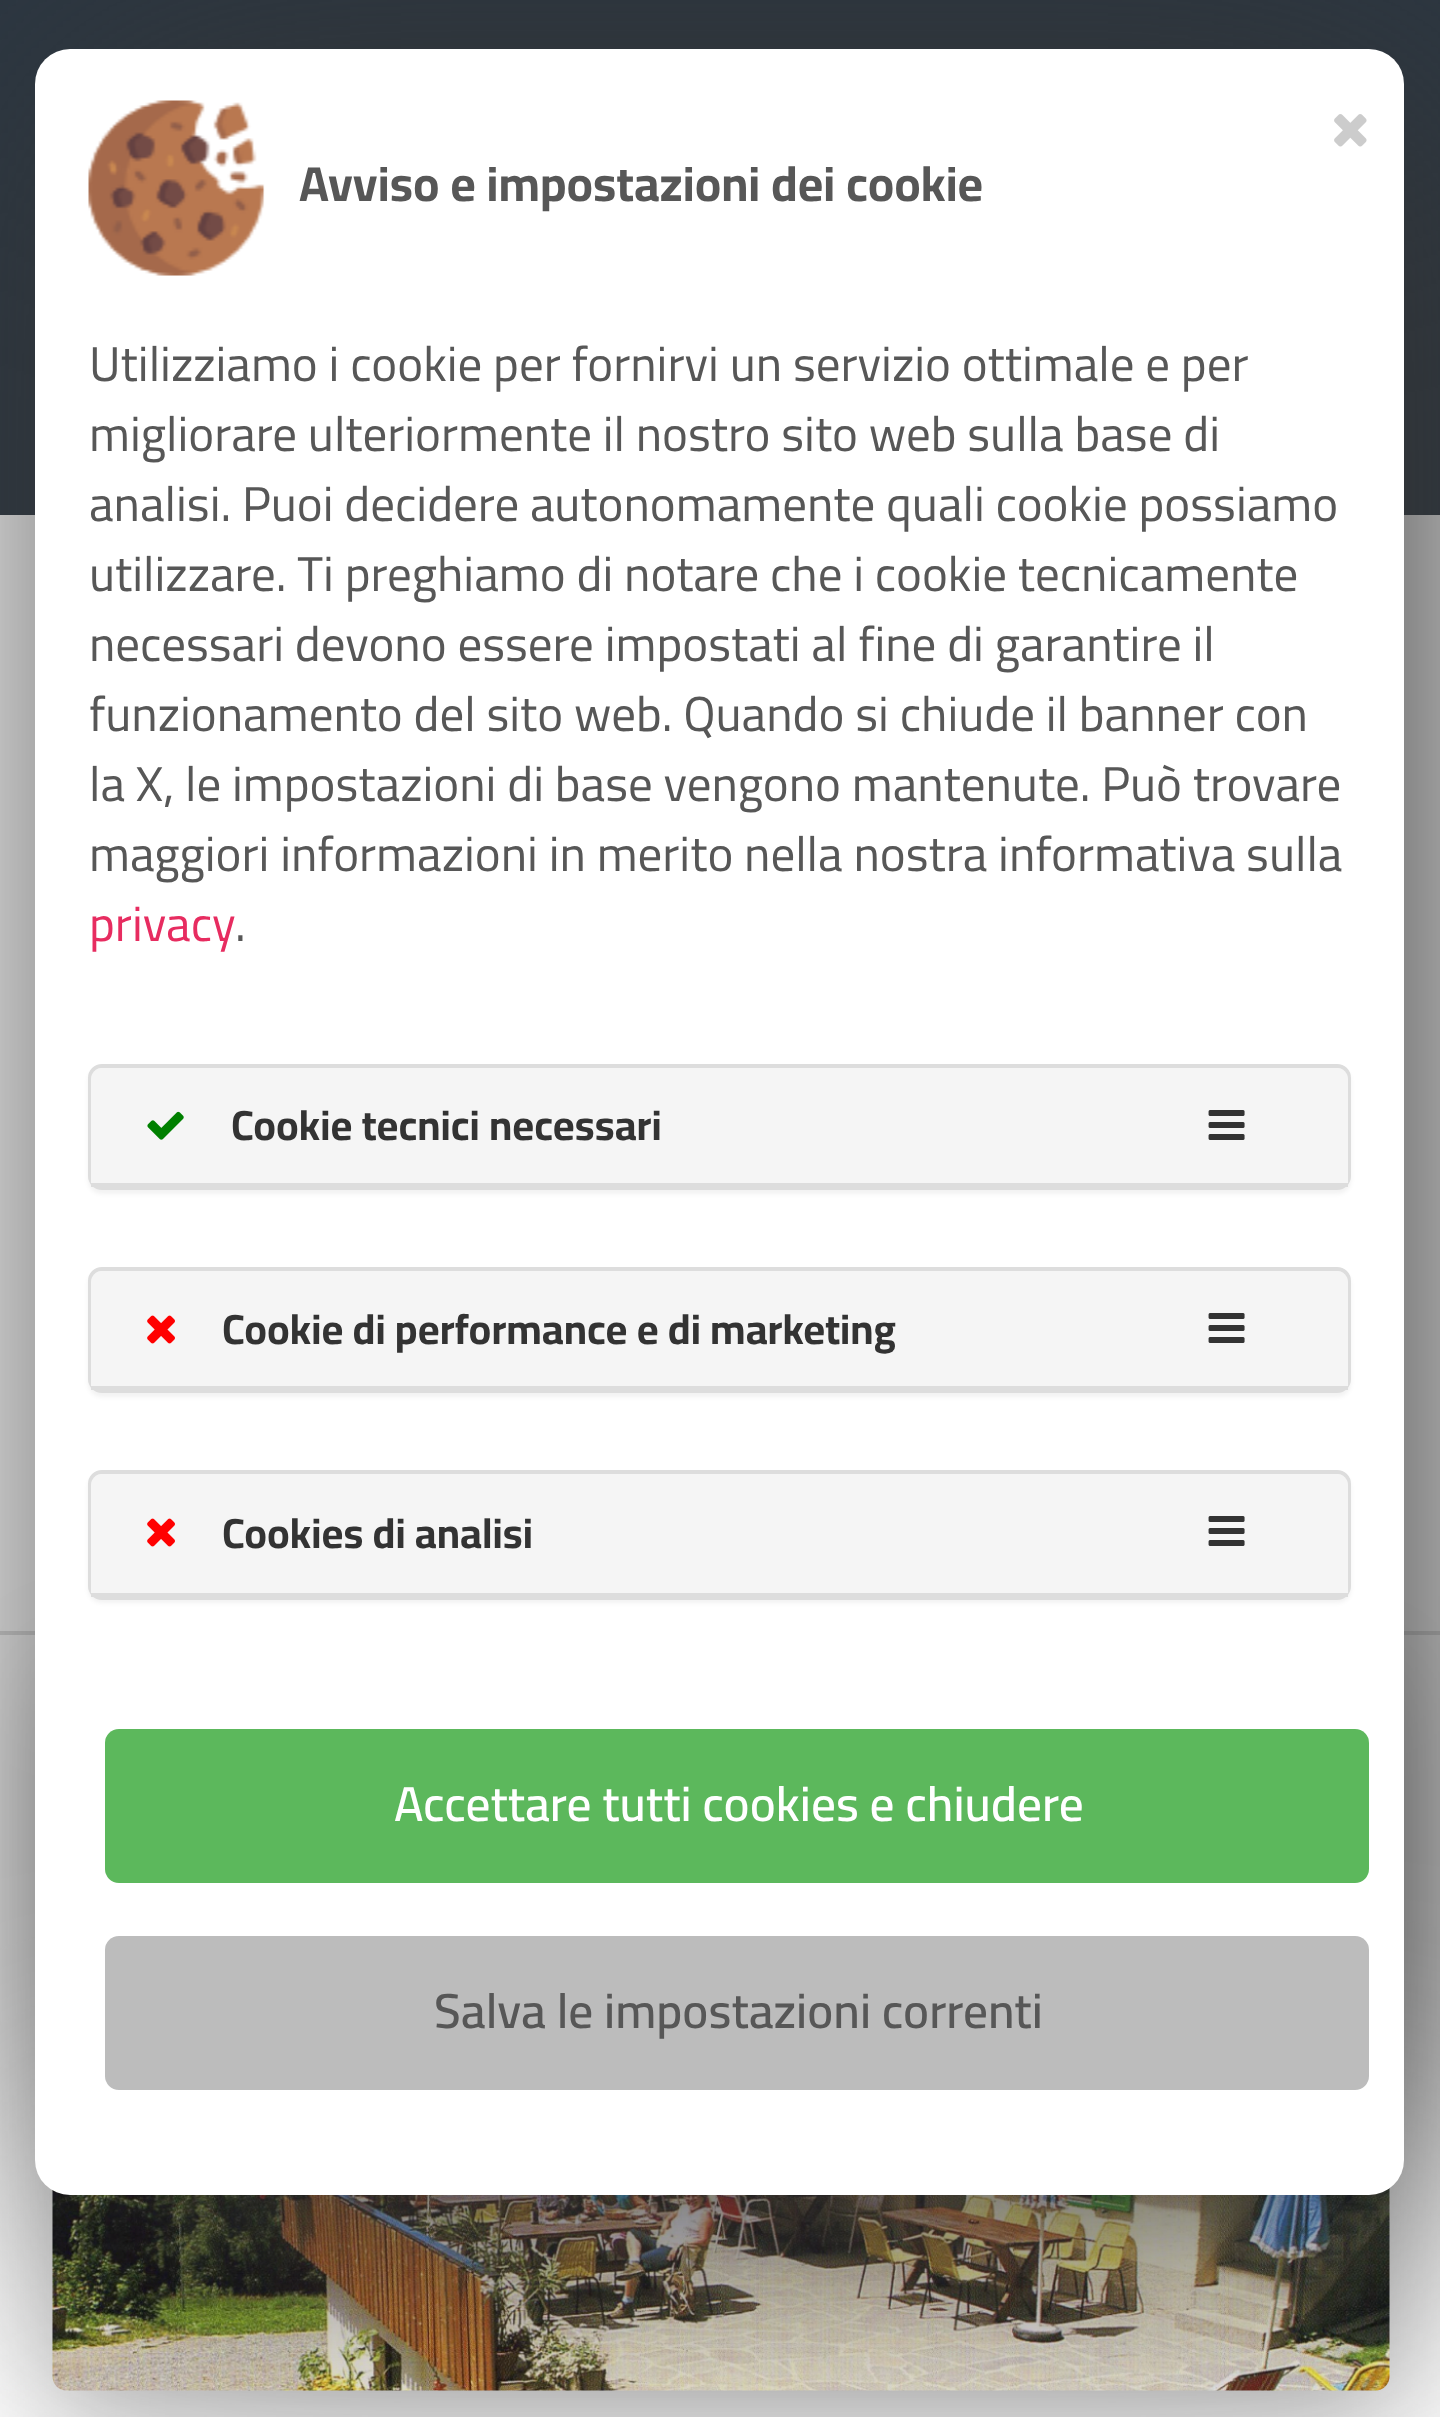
<!DOCTYPE html>
<meta charset="utf-8">
<style>body { margin: 0 } canvas { display: block }</style>
<canvas id="canvas" width="1440" height="2417"></canvas>
<img id="img1" src="img_06.png" hidden>
<img id="img2" src="img_01.png" hidden>
<img id="img3" src="img_02.png" hidden>
<img id="img4" src="img_03.png" hidden>
<img id="img5" src="img_04.png" hidden>
<img id="img6" src="img_05.png" hidden>
<script>
window.onload = function () {
	const canvas = document.getElementById("canvas");
	const ctx = canvas.getContext("2d");
	ctx.miterLimit = 4;
	ctx.fontKerning = "normal";
	function txt(s, x, y) {
		ctx.fillText(s, x, y);
	}
	function fill(x, y, w, h) {
		ctx.fillRect(x, y, w, h);
	}
	function round(x, y, w, h, r) {
		ctx.beginPath();
		ctx.roundRect(x, y, w, h, r);
		ctx.fill();
	}
	function img(id, x, y, w, h) {
		ctx.drawImage(document.getElementById(id), x, y, w, h);
	}

	ctx.fillStyle = "#FFFFFF";
	fill(0, 0, 1440, 2417);
	ctx.fillStyle = "#2C3742";
	fill(0, 0, 1440, 515);
	ctx.fillStyle = "#DDDDDD";
	fill(0, 1631, 1440, 4);
	ctx.fillStyle = "rgba(0, 0, 0, 0.23)";
	ctx.filter = "blur(52.5px)";
	ctx.beginPath();
	ctx.roundRect(53, 1677, 1337, 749, 14);
	ctx.fill();
	ctx.filter = "none";
	img("img1", 52, 2188, 1338, 203);
	ctx.fillStyle = "#333333";
	ctx.filter = "blur(157.5px)";
	ctx.beginPath();
	ctx.roundRect(70, 84, 1369, 2146, 35);
	ctx.fill();
	ctx.filter = "none";
	ctx.fillStyle = "#FFFFFF";
	round(35, 49, 1369, 2146, 35);
	img("img2", 1334, 114, 33, 33);
	img("img3", 88, 100, 177, 176);
	ctx.fillStyle = "rgba(0, 0, 0, 0.05)";
	ctx.filter = "blur(2px)";
	ctx.beginPath();
	ctx.roundRect(88, 1068, 1263, 126, 14);
	ctx.fill();
	ctx.filter = "none";
	ctx.beginPath();
	ctx.roundRect(90, 1066, 1259, 122, 12);
	ctx.strokeStyle = "#DDDDDD";
	ctx.lineWidth = 4;
	ctx.stroke();
	ctx.fillStyle = "#F5F5F5";
	ctx.beginPath();
	ctx.roundRect(91, 1068, 1257, 119, [11, 11, 0, 0]);
	ctx.fill();
	ctx.fillStyle = "#DDDDDD";
	fill(91, 1183, 1257, 4);
	img("img4", 147, 1111, 37, 29);
	img("img5", 1208, 1110, 37, 30);
	ctx.fillStyle = "rgba(0, 0, 0, 0.05)";
	ctx.filter = "blur(2px)";
	ctx.beginPath();
	ctx.roundRect(88, 1271, 1263, 126, 14);
	ctx.fill();
	ctx.filter = "none";
	ctx.beginPath();
	ctx.roundRect(90, 1269, 1259, 122, 12);
	ctx.stroke();
	ctx.fillStyle = "#F5F5F5";
	ctx.beginPath();
	ctx.roundRect(91, 1271, 1257, 119, [11, 11, 0, 0]);
	ctx.fill();
	ctx.fillStyle = "#DDDDDD";
	fill(91, 1386, 1257, 4);
	img("img6", 147, 1315, 28, 29);
	img("img5", 1208, 1313, 37, 30);
	ctx.fillStyle = "rgba(0, 0, 0, 0.05)";
	ctx.filter = "blur(2px)";
	ctx.beginPath();
	ctx.roundRect(88, 1474, 1263, 129, 14);
	ctx.fill();
	ctx.filter = "none";
	ctx.beginPath();
	ctx.roundRect(90, 1472, 1259, 126, 12);
	ctx.stroke();
	ctx.fillStyle = "#F5F5F5";
	ctx.beginPath();
	ctx.roundRect(91, 1474, 1257, 122, [11, 11, 0, 0]);
	ctx.fill();
	ctx.fillStyle = "#DDDDDD";
	fill(91, 1593, 1257, 4);
	img("img6", 147, 1518, 28, 29);
	img("img5", 1208, 1516, 37, 30);
	ctx.fillStyle = "#5CB85C";
	round(105, 1729, 1264, 154, 14);
	ctx.fillStyle = "#BCBCBC";
	round(105, 1936, 1264, 154, 14);
	ctx.font = "bold 49px Cairo";
	ctx.fillStyle = "#575757";
	txt("Avviso e impostazioni dei cookie", 299, 201);
	ctx.font = "49px Cairo";
	txt("Utilizziamo i cookie per fornirvi un servizio ottimale e per", 89, 381);
	txt("migliorare ulteriormente il nostro sito web sulla base di", 89, 451);
	txt("analisi. Puoi decidere autonomamente quali cookie possiamo", 89, 521);
	txt("utilizzare. Ti preghiamo di notare che i cookie tecnicamente", 89, 591);
	txt("necessari devono essere impostati al fine di garantire il", 89, 661);
	txt("funzionamento del sito web. Quando si chiude il banner con", 89, 731);
	txt("la X, le impostazioni di base vengono mantenute. Può trovare", 89, 801);
	txt("maggiori informazioni in merito nella nostra informativa sulla", 89, 871);
	ctx.fillStyle = "#E72C60";
	txt("privacy", 89, 941);
	ctx.fillStyle = "#575757";
	txt(".", 235, 941);
	ctx.font = "bold 42px Cairo";
	ctx.fillStyle = "#333333";
	txt("Cookie tecnici necessari", 231, 1140);
	txt("Cookie di performance e di marketing", 222, 1344);
	txt("Cookies di analisi", 222, 1548);
	ctx.font = "600 49px Cairo";
	ctx.fillStyle = "#FFFFFF";
	txt("Accettare tutti cookies e chiudere", 394, 1821);
	ctx.fillStyle = "#575757";
	txt("Salva le impostazioni correnti", 434, 2028);
};
</script>
